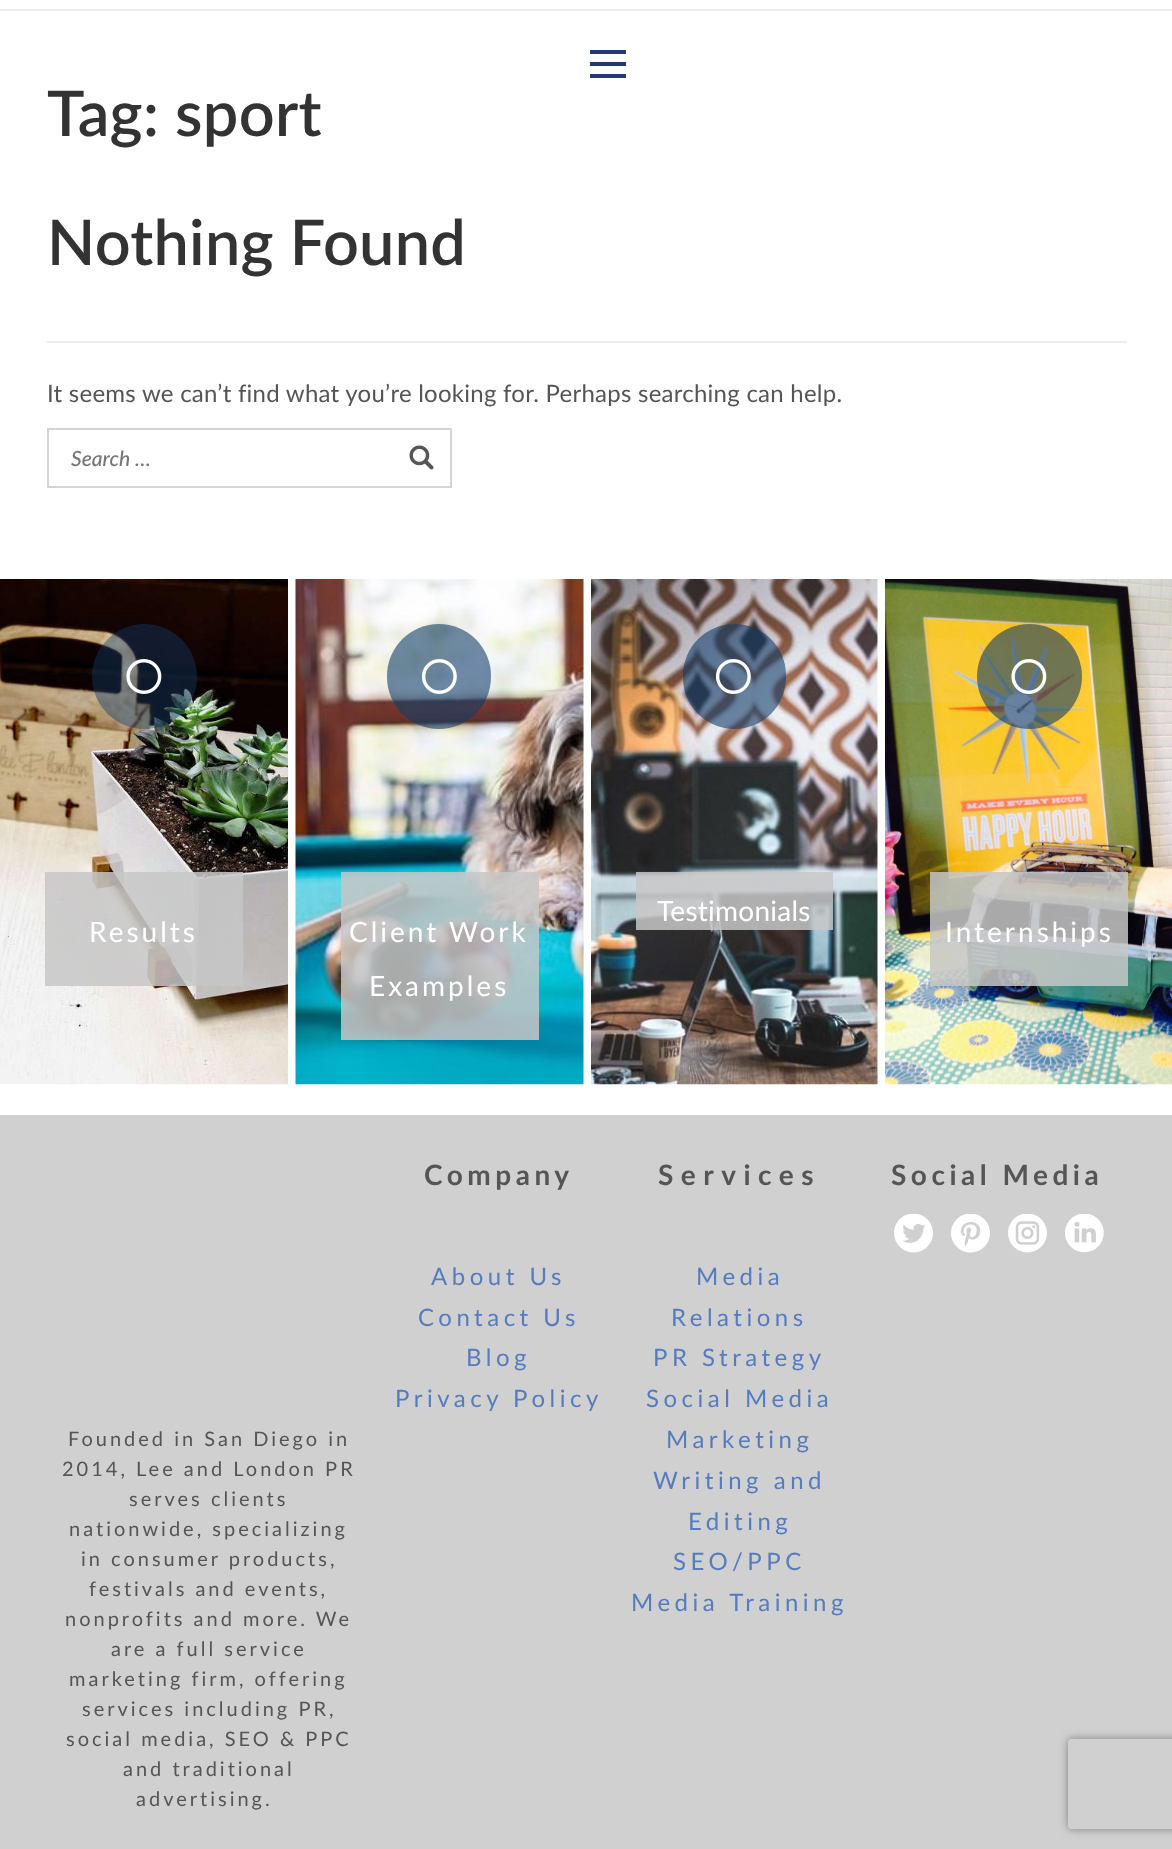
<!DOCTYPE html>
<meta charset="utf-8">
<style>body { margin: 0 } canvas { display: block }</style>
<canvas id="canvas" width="1172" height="1849"></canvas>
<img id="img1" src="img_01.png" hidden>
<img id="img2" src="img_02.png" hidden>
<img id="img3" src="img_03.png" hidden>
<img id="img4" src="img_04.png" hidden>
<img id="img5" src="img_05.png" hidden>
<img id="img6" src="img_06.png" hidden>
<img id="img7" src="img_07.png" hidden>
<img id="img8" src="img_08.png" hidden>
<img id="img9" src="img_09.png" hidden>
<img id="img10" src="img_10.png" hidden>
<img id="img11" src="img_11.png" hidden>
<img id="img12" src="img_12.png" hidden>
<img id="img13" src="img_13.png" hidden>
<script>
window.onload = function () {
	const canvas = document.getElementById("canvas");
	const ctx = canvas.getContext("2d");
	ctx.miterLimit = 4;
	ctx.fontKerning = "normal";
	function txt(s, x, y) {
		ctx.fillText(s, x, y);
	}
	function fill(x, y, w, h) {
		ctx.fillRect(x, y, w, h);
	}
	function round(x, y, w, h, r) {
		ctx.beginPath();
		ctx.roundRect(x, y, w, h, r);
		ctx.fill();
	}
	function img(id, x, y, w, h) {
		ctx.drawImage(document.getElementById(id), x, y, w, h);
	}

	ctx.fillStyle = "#FFFFFF";
	fill(0, 0, 1172, 1849);
	ctx.fillStyle = "#EDEDED";
	fill(0, 9, 1172, 2);
	ctx.fillStyle = "#233874";
	fill(590, 50, 36, 4);
	fill(590, 62, 36, 4);
	fill(590, 74, 36, 4);
	ctx.fillStyle = "#EEEEEE";
	fill(47, 341, 1080, 2);
	ctx.strokeStyle = "#D4D4D4";
	ctx.lineWidth = 2;
	ctx.strokeRect(48, 429, 403, 58);
	img("img1", 409, 445, 25, 25);
	img("img2", 591, 579, 287, 506);
	ctx.fillStyle = "rgba(16, 60, 106, 0.59)";
	round(683, 624, 103, 105, 51.5);
	img("img3", 715, 659, 36, 35);
	ctx.fillStyle = "rgba(199, 199, 199, 0.85)";
	fill(636, 872, 197, 58);
	img("img4", 0, 579, 288, 506);
	ctx.fillStyle = "rgba(16, 60, 106, 0.42)";
	ctx.beginPath();
	ctx.arc(144.5, 676.5, 52.5, 0, Math.PI * 2);
	ctx.fill();
	img("img5", 126, 659, 36, 35);
	ctx.fillStyle = "rgba(199, 199, 199, 0.85)";
	fill(45, 872, 198, 114);
	img("img6", 295, 579, 289, 506);
	ctx.fillStyle = "rgba(16, 60, 106, 0.59)";
	round(387, 624, 104, 105, 52);
	img("img7", 421, 659, 36, 35);
	ctx.fillStyle = "rgba(199, 199, 199, 0.85)";
	fill(341, 872, 198, 168);
	img("img8", 885, 579, 287, 506);
	ctx.fillStyle = "rgba(16, 60, 106, 0.59)";
	ctx.beginPath();
	ctx.arc(1029.5, 676.5, 52.5, 0, Math.PI * 2);
	ctx.fill();
	img("img9", 1011, 659, 36, 35);
	ctx.fillStyle = "rgba(199, 199, 199, 0.85)";
	fill(930, 872, 198, 114);
	ctx.fillStyle = "#D0D0D0";
	fill(0, 1115, 1172, 734);
	img("img10", 894, 1214, 39, 39);
	img("img11", 951, 1214, 39, 39);
	img("img12", 1008, 1214, 39, 39);
	img("img13", 1065, 1214, 39, 39);
	ctx.save();
	ctx.beginPath();
	ctx.moveTo(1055, 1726);
	ctx.lineTo(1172, 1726);
	ctx.lineTo(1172, 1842);
	ctx.lineTo(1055, 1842);
	ctx.closePath();
	ctx.moveTo(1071, 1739);
	ctx.lineTo(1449, 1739);
	ctx.bezierCurveTo(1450.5, 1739, 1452, 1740.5, 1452, 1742);
	ctx.lineTo(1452, 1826);
	ctx.bezierCurveTo(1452, 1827.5, 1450.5, 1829, 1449, 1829);
	ctx.lineTo(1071, 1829);
	ctx.bezierCurveTo(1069.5, 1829, 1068, 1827.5, 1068, 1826);
	ctx.lineTo(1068, 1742);
	ctx.bezierCurveTo(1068, 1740.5, 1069.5, 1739, 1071, 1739);
	ctx.closePath();
	ctx.clip("evenodd");
	ctx.fillStyle = "#808080";
	ctx.filter = "blur(4px)";
	ctx.beginPath();
	ctx.roundRect(1068, 1739, 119, 90, 3);
	ctx.fill();
	ctx.filter = "none";
	ctx.restore();
	ctx.letterSpacing = "0.25px";
	ctx.font = "600 63px Lato";
	ctx.fillStyle = "#333333";
	txt("Tag: sport", 47, 136);
	txt("Nothing Found", 47, 265);
	ctx.font = "24px Lato";
	ctx.fillStyle = "#555555";
	txt("It seems we can’t find what you’re looking for. Perhaps searching can help.", 47, 402);
	ctx.letterSpacing = "0px";
	ctx.font = "italic 500 21px Lato";
	ctx.fillStyle = "#757575";
	txt("Search …", 71, 466);
	ctx.letterSpacing = "0.25px";
	ctx.font = "28px Lato";
	ctx.fillStyle = "#FFFFFF";
	txt("Testimonials", 657, 921);
	ctx.letterSpacing = "3px";
	txt("Results", 89, 942);
	txt("Client Work", 349, 942);
	txt("Examples", 369, 996);
	txt("Internships", 945, 942);
	ctx.letterSpacing = "4.5px";
	ctx.font = "bold 28px Lato";
	ctx.fillStyle = "#555555";
	txt("Company", 424, 1185);
	ctx.font = "24px Lato";
	ctx.fillStyle = "#557CBF";
	txt("About Us", 431, 1285);
	txt("Contact Us", 418, 1326);
	txt("Blog", 466, 1366);
	txt("Privacy Policy", 395, 1407);
	ctx.letterSpacing = "7.5px";
	ctx.font = "bold 28px Lato";
	ctx.fillStyle = "#555555";
	txt("Services", 658, 1185);
	ctx.letterSpacing = "4.5px";
	ctx.font = "24px Lato";
	ctx.fillStyle = "#557CBF";
	txt("Media", 696, 1285);
	txt("Relations", 671, 1326);
	txt("PR Strategy", 653, 1366);
	txt("Social Media", 646, 1407);
	txt("Marketing", 666, 1448);
	txt("Writing and", 653, 1489);
	txt("Editing", 688, 1530);
	txt("SEO/PPC", 673, 1570);
	txt("Media Training", 631, 1611);
	ctx.font = "bold 28px Lato";
	ctx.fillStyle = "#555555";
	txt("Social Media", 891, 1185);
	ctx.letterSpacing = "3px";
	ctx.font = "20px Lato";
	txt("Founded in San Diego in", 68, 1446);
	txt("2014, Lee and London PR", 62, 1476);
	txt("serves clients", 129, 1506);
	txt("nationwide, specializing", 69, 1536);
	txt("in consumer products,", 81, 1566);
	txt("festivals and events,", 89, 1596);
	txt("nonprofits and more. We", 65, 1626);
	txt("are a full service", 111, 1656);
	txt("marketing firm, offering", 69, 1686);
	txt("services including PR,", 82, 1716);
	txt("social media, SEO & PPC", 66, 1746);
	txt("and traditional", 123, 1776);
	txt("advertising.", 136, 1806);
};
</script>
